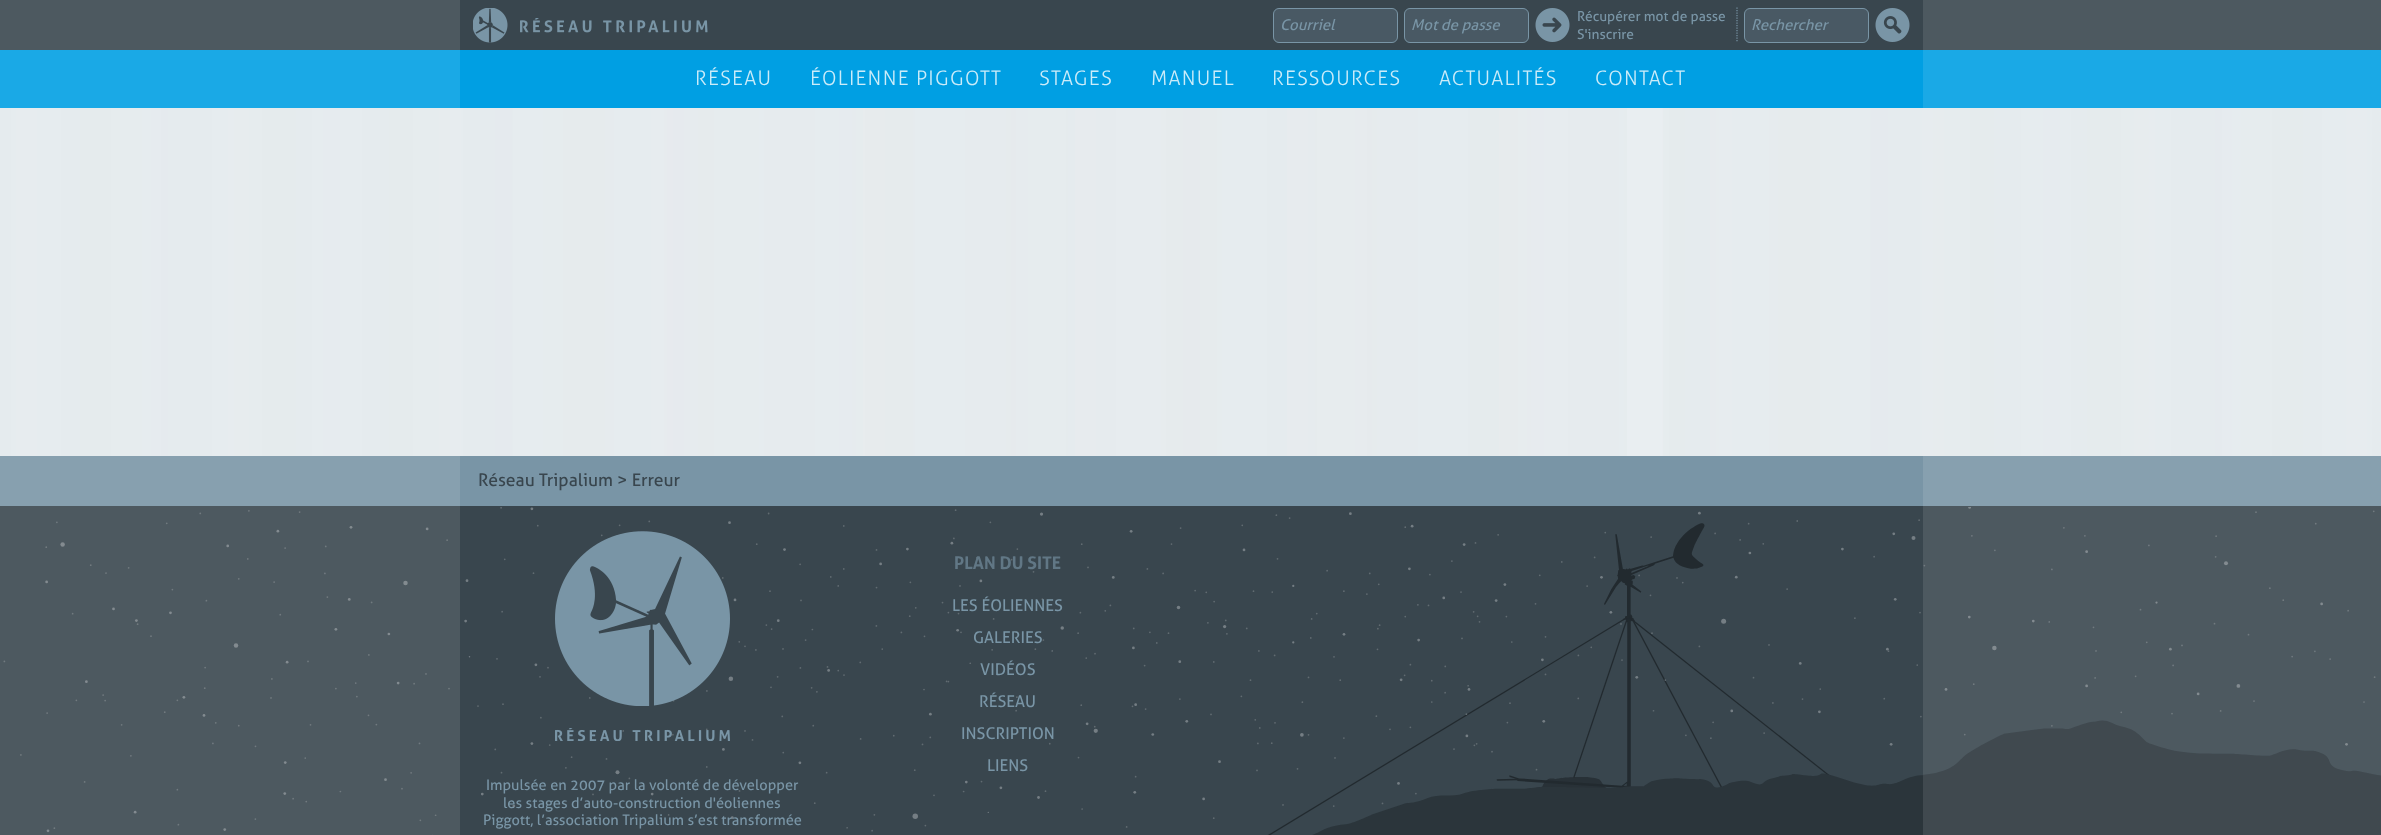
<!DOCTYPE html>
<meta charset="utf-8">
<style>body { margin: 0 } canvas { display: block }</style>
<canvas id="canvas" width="2381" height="835"></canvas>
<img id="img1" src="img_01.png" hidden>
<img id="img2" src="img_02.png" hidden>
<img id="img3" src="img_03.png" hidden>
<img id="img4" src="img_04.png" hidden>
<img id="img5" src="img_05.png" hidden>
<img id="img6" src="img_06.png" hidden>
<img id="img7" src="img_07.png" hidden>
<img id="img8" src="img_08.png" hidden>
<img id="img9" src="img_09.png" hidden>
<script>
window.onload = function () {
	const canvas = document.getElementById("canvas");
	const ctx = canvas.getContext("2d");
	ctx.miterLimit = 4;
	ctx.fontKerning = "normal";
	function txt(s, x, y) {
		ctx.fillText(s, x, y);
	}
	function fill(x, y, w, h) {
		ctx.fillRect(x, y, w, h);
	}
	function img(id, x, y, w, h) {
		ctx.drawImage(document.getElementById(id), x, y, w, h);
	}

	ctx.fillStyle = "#F2F5F7";
	fill(0, 0, 2381, 835);
	ctx.fillStyle = "#4D5960";
	fill(0, 0, 2381, 50);
	ctx.fillStyle = "#39464E";
	fill(460, 0, 1463, 50);
	img("img1", 473, 8, 35, 35);
	img("img2", 520, 18, 188, 15);
	ctx.beginPath();
	ctx.moveTo(1737, 7.5);
	ctx.lineTo(1737, 42.5);
	ctx.strokeStyle = "#7995A6";
	ctx.lineWidth = 1.2;
	ctx.setLineDash([1.25, 1.25]);
	ctx.stroke();
	ctx.fillStyle = "#495964";
	ctx.beginPath();
	ctx.roundRect(1273.5, 8.5, 124, 34, 5.5);
	ctx.fill();
	ctx.lineWidth = 1;
	ctx.setLineDash([]);
	ctx.stroke();
	ctx.beginPath();
	ctx.roundRect(1404.5, 8.5, 124, 34, 5.5);
	ctx.fill();
	ctx.stroke();
	img("img3", 1535, 8, 35, 34);
	ctx.beginPath();
	ctx.roundRect(1744.5, 8.5, 124, 34, 5.5);
	ctx.fill();
	ctx.stroke();
	img("img4", 1875, 8, 35, 34);
	ctx.fillStyle = "#1AA9E6";
	fill(0, 50, 2381, 58);
	ctx.fillStyle = "#009FE3";
	fill(460, 50, 1463, 58);
	img("img5", 0, 108, 2381, 348);
	ctx.fillStyle = "#87A0AF";
	fill(0, 456, 2381, 50);
	ctx.fillStyle = "#7995A6";
	fill(460, 456, 1463, 50);
	ctx.fillStyle = "#4D5960";
	fill(0, 506, 2381, 329);
	img("img6", 3, 507, 2378, 328);
	ctx.fillStyle = "#39464E";
	fill(460, 506, 1463, 329);
	img("img7", 464, 507, 1459, 328);
	img("img8", 555, 531, 175, 175);
	img("img9", 555, 728, 175, 13);
	ctx.font = "italic 15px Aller";
	ctx.fillStyle = "#7995A6";
	txt("Courriel", 1280, 30);
	txt("Mot de passe", 1411, 30);
	ctx.font = "13.75px Aller";
	txt("Récupérer mot de passe", 1577, 21);
	txt("S'inscrire", 1577, 39);
	ctx.font = "italic 15px Aller";
	txt("Rechercher", 1751, 30);
	ctx.letterSpacing = "1.25px";
	ctx.font = "300 20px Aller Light";
	ctx.fillStyle = "#CCECF9";
	txt("RÉSEAU", 695, 85);
	txt("ÉOLIENNE PIGGOTT", 810, 85);
	txt("STAGES", 1039, 85);
	txt("MANUEL", 1151, 85);
	txt("RESSOURCES", 1272, 85);
	txt("ACTUALITÉS", 1439, 85);
	txt("CONTACT", 1595, 85);
	ctx.letterSpacing = "0px";
	ctx.font = "17.5px Aller";
	ctx.fillStyle = "#39464E";
	txt("Réseau Tripalium > Erreur", 478, 486);
	ctx.font = "bold 17.5px Aller";
	ctx.fillStyle = "#617785";
	txt("PLAN DU SITE", 954, 569);
	ctx.font = "16.25px Aller";
	ctx.fillStyle = "#7995A6";
	txt("LES ÉOLIENNES", 952, 611);
	txt("GALERIES", 973, 643);
	txt("VIDÉOS", 980, 675);
	txt("RÉSEAU", 979, 707);
	txt("INSCRIPTION", 961, 739);
	txt("LIENS", 987, 771);
	ctx.font = "14.6px Aller";
	txt("Impulsée en 2007 par la volonté de développer", 486, 790);
	txt("les stages d’auto-construction d'éoliennes", 503, 808);
	txt("Piggott, l’association Tripalium s’est transformée", 483, 825);
};
</script>
